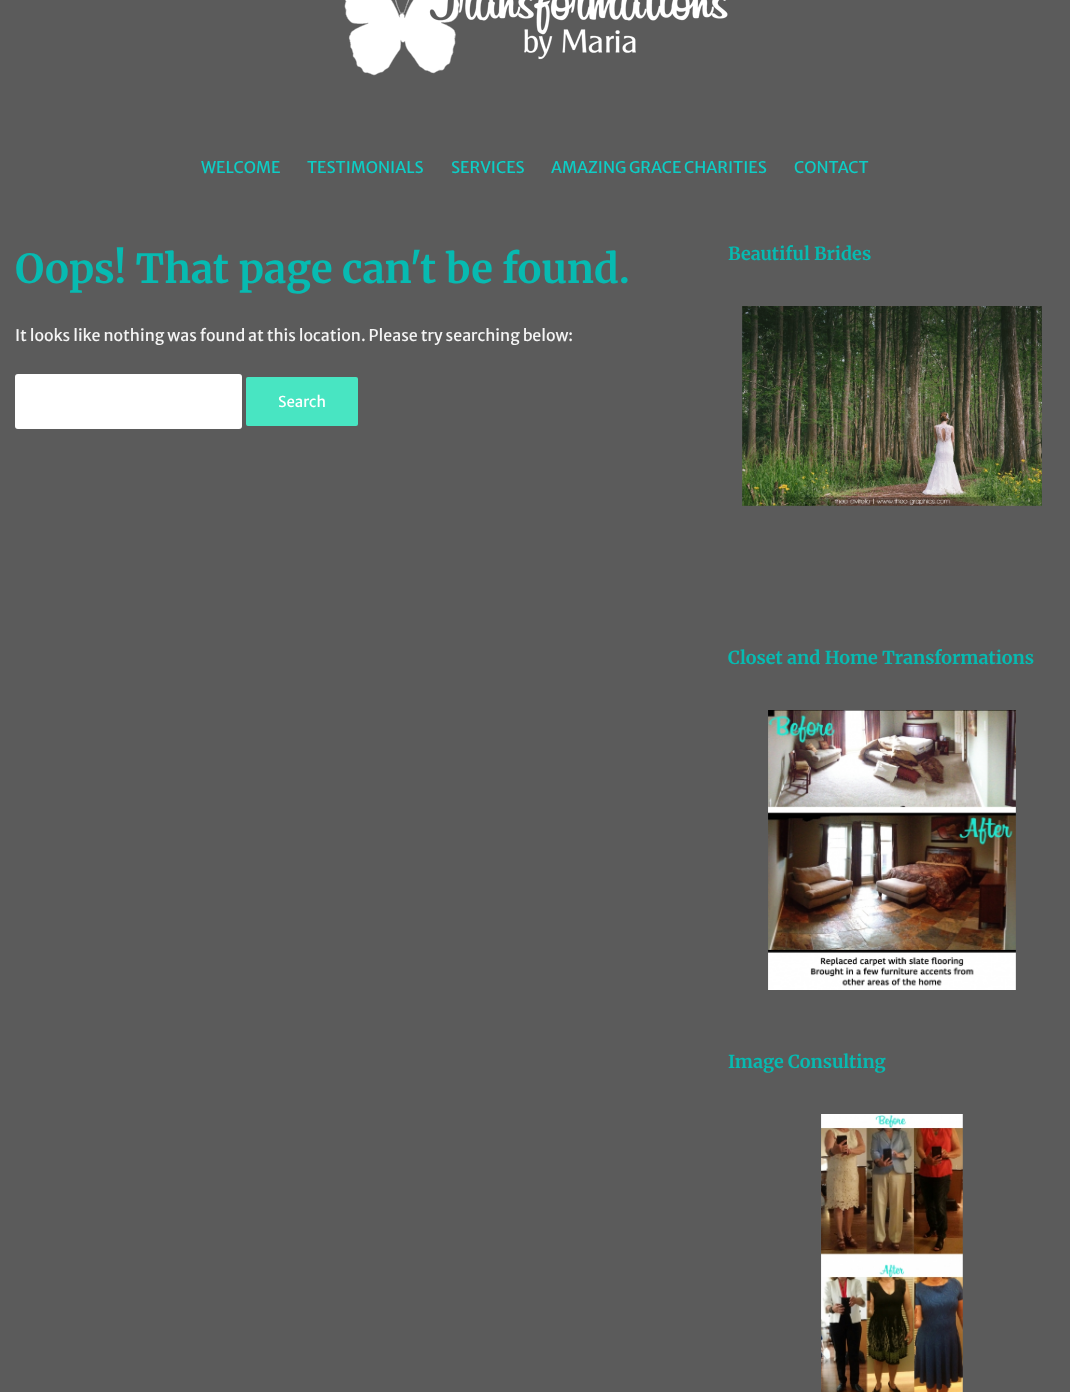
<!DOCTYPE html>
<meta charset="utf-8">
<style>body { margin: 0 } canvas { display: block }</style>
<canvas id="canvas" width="1070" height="1392"></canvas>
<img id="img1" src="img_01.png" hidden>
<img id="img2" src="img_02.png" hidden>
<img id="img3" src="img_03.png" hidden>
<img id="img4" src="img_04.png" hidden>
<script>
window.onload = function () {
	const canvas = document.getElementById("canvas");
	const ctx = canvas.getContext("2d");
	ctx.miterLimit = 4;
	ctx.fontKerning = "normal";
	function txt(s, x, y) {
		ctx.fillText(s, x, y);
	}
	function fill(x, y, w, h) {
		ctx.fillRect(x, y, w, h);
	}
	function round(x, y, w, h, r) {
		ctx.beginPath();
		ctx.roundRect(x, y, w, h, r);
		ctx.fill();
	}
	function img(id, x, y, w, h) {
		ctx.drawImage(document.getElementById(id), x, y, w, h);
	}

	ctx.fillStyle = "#5B5B5B";
	fill(0, 0, 1070, 1392);
	img("img1", 344, 0, 384, 76);
	ctx.fillStyle = "#FFFFFF";
	round(15, 374, 227, 55, 3);
	ctx.beginPath();
	ctx.roundRect(15.5, 374.5, 226, 54, 2.5);
	ctx.strokeStyle = "rgba(244, 244, 244, 0.1)";
	ctx.stroke();
	ctx.fillStyle = "#48E5C2";
	round(246, 377, 112, 49, 2);
	img("img2", 742, 306, 300, 200);
	img("img3", 768, 710, 248, 280);
	img("img4", 821, 1114, 142, 278);
	ctx.font = "16px Merriweather Sans";
	ctx.fillStyle = "#0ECDC5";
	txt("WELCOME", 201, 173);
	txt("TESTIMONIALS", 307, 173);
	txt("SERVICES", 451, 173);
	txt("AMAZING GRACE CHARITIES", 551, 173);
	txt("CONTACT", 794, 173);
	ctx.font = "bold 40px Merriweather";
	ctx.fillStyle = "#07BAB1";
	txt("Oops! That page can't be found.", 15, 283);
	ctx.font = "16px Merriweather Sans";
	ctx.fillStyle = "#F4F4F4";
	txt("It looks like nothing was found at this location. Please try searching below:", 15, 341);
	ctx.font = "15px Merriweather Sans";
	ctx.fillStyle = "#FFFFFF";
	txt("Search", 278, 407);
	ctx.font = "bold 18px Merriweather";
	ctx.fillStyle = "#07BAB1";
	txt("Beautiful Brides", 728, 260);
	txt("Closet and Home Transformations", 728, 664);
	txt("Image Consulting", 728, 1068);
};
</script>
